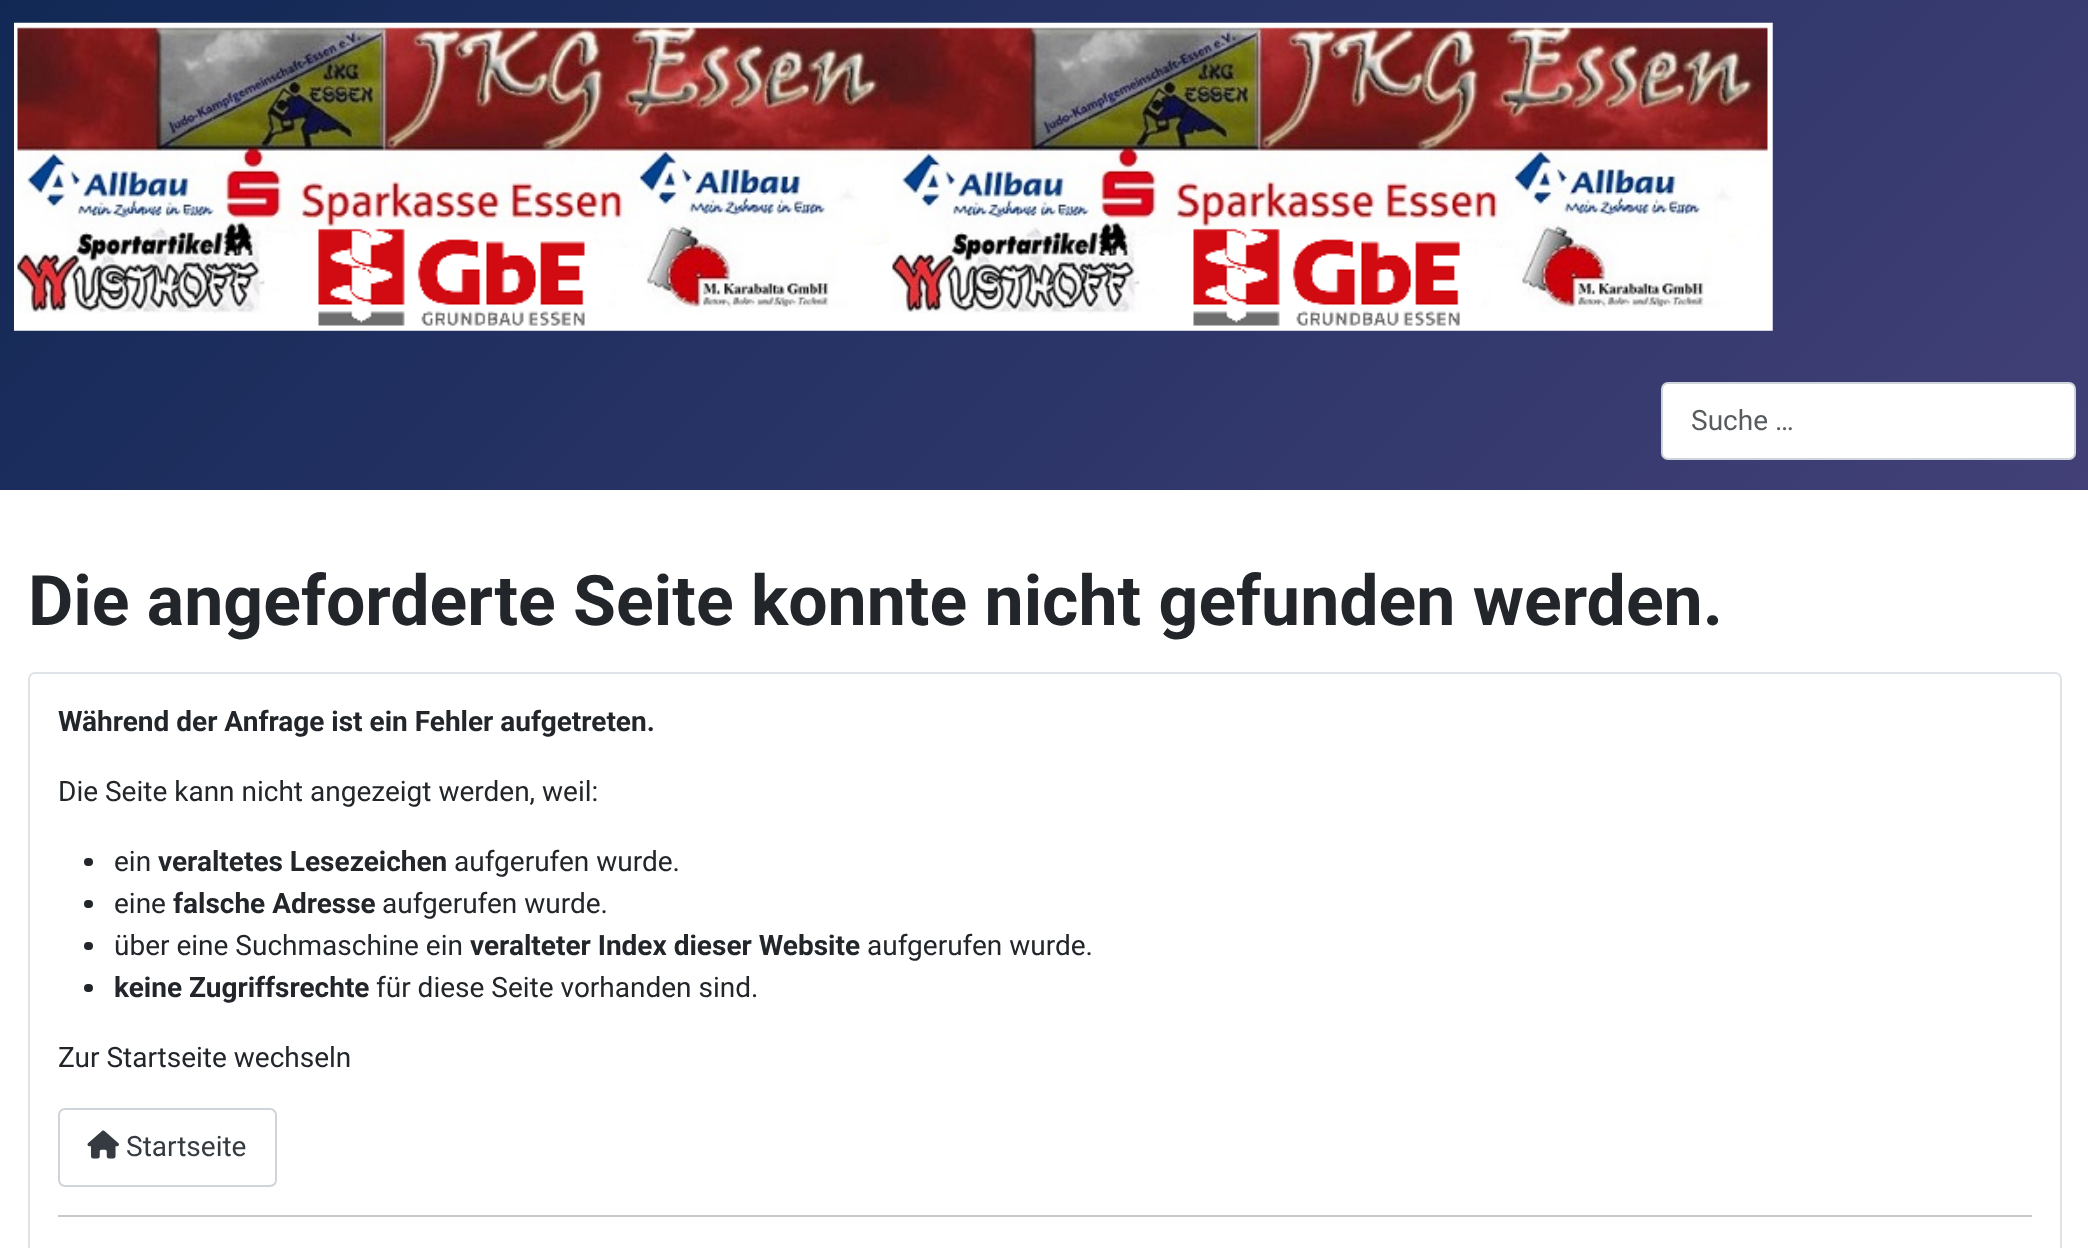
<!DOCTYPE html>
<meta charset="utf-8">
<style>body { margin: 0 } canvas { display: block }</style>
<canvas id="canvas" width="2088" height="1248"></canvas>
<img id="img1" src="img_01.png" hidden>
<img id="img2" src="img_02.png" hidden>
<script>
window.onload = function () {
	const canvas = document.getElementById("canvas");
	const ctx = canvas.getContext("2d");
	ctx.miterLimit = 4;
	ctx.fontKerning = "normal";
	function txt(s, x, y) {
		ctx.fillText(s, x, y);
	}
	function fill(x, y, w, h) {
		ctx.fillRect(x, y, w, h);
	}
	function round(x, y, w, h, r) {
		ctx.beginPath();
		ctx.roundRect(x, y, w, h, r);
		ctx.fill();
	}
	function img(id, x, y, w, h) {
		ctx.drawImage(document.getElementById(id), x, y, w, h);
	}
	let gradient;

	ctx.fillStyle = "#FFFFFF";
	fill(0, 0, 2088, 1248);
	gradient = ctx.createLinearGradient(400, -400, 1690, 890);
	gradient.addColorStop(0, "#112855");
	gradient.addColorStop(1, "#424077");
	ctx.fillStyle = gradient;
	fill(0, 0, 2088, 490);
	img("img1", 14, 22, 1759, 309);
	ctx.fillStyle = "#FFFFFF";
	ctx.beginPath();
	ctx.roundRect(1662, 383, 413, 76, 6);
	ctx.fill();
	ctx.strokeStyle = "#CED4DA";
	ctx.lineWidth = 2;
	ctx.stroke();
	ctx.beginPath();
	ctx.roundRect(29, 673, 2032, 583, 6);
	ctx.strokeStyle = "#DFE3E7";
	ctx.stroke();
	ctx.fillStyle = "#22262A";
	round(84, 858, 9, 8, 4);
	round(84, 900, 9, 8, 4);
	round(84, 942, 9, 8, 4);
	round(84, 984, 9, 8, 4);
	ctx.beginPath();
	ctx.roundRect(59, 1109, 217, 77, 6);
	ctx.strokeStyle = "#CED4DA";
	ctx.stroke();
	img("img2", 87, 1130, 32, 29);
	ctx.fillStyle = "#C8C9CA";
	fill(58, 1215, 1974, 2);
	ctx.font = "28px Roboto";
	ctx.fillStyle = "#595C5F";
	txt("Suche …", 1691, 430);
	ctx.font = "bold 69.8px Roboto";
	ctx.fillStyle = "#22262A";
	txt("Die angeforderte Seite konnte nicht gefunden werden.", 28, 625);
	ctx.font = "bold 28px Roboto";
	txt("Während der Anfrage ist ein Fehler aufgetreten.", 58, 731);
	ctx.font = "28px Roboto";
	txt("Die Seite kann nicht angezeigt werden, weil:", 58, 801);
	txt("ein", 114, 871);
	ctx.font = "bold 28px Roboto";
	txt("veraltetes Lesezeichen", 158, 871);
	ctx.font = "28px Roboto";
	txt("aufgerufen wurde.", 454, 871);
	txt("eine", 114, 913);
	ctx.font = "bold 28px Roboto";
	txt("falsche Adresse", 173, 913);
	ctx.font = "28px Roboto";
	txt("aufgerufen wurde.", 382, 913);
	txt("über eine Suchmaschine ein", 114, 955);
	ctx.font = "bold 28px Roboto";
	txt("veralteter Index dieser Website", 470, 955);
	ctx.font = "28px Roboto";
	txt("aufgerufen wurde.", 867, 955);
	ctx.font = "bold 28px Roboto";
	txt("keine Zugriffsrechte", 114, 997);
	ctx.font = "28px Roboto";
	txt("für diese Seite vorhanden sind.", 376, 997);
	txt("Zur Startseite wechseln", 58, 1067);
	ctx.fillStyle = "#353B41";
	txt("Startseite", 126, 1156);
};
</script>
